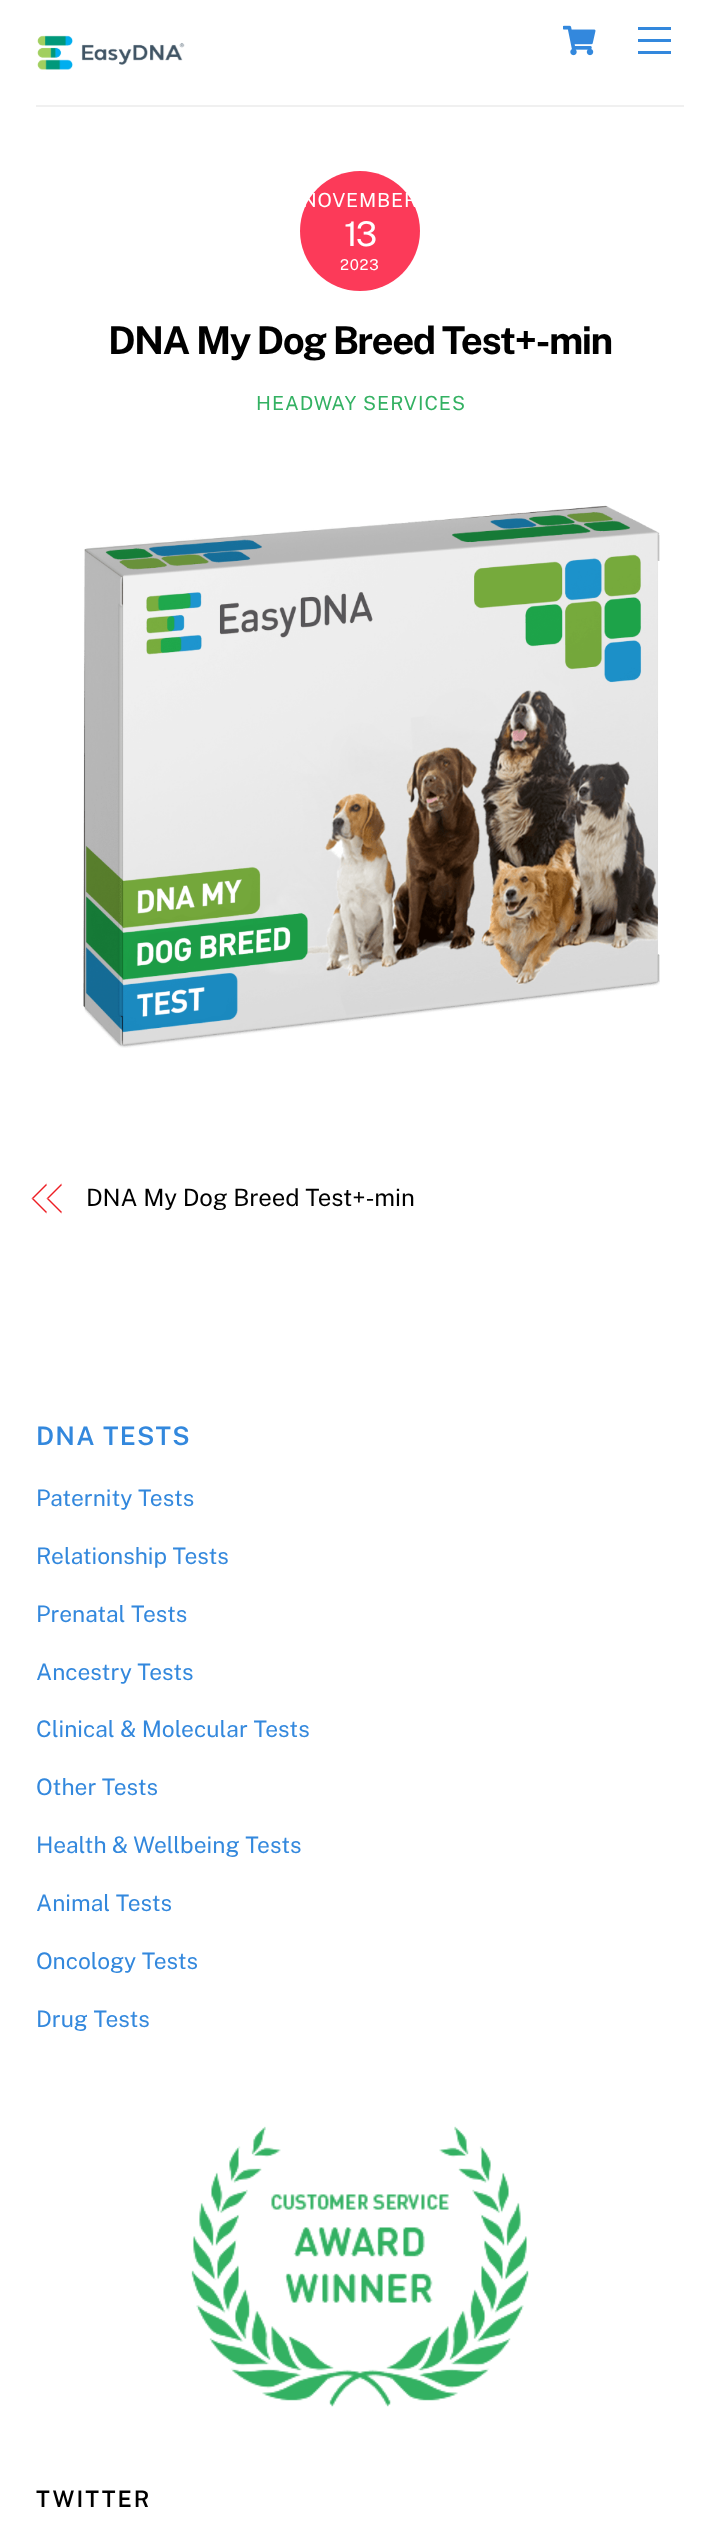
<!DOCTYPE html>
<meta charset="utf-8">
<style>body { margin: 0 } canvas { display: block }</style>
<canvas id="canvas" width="719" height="2523"></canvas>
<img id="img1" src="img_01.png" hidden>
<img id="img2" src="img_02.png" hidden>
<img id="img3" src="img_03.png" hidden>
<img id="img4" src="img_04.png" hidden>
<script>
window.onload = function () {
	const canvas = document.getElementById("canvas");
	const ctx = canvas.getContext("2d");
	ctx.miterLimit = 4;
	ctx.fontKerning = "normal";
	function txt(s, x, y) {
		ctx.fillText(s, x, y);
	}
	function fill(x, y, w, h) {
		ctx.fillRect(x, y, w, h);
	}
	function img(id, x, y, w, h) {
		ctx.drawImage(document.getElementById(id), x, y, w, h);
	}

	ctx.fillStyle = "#FFFFFF";
	fill(0, 0, 719, 2523);
	img("img1", 563, 25, 33, 31);
	ctx.fillStyle = "#3388DD";
	fill(638, 51, 33, 3);
	fill(638, 27, 33, 3);
	fill(638, 39, 33, 3);
	ctx.fillStyle = "#F0F0F0";
	fill(36, 105, 648, 2);
	img("img2", 37, 35, 148, 35);
	ctx.fillStyle = "#FC3A59";
	ctx.beginPath();
	ctx.arc(360, 231, 60, 0, Math.PI * 2);
	ctx.fill();
	img("img3", 83, 505, 577, 543);
	ctx.fillStyle = "#ED1E24";
	ctx.beginPath();
	ctx.moveTo(31.5, 1198.5);
	ctx.lineTo(46.5, 1183.5);
	ctx.lineTo(46.5, 1185.5);
	ctx.lineTo(33.5, 1198.5);
	ctx.closePath();
	ctx.fill();
	ctx.beginPath();
	ctx.moveTo(46.5, 1213.5);
	ctx.lineTo(31.5, 1198.5);
	ctx.lineTo(33.5, 1198.5);
	ctx.lineTo(46.5, 1211.5);
	ctx.closePath();
	ctx.fill();
	ctx.beginPath();
	ctx.moveTo(46.5, 1198.5);
	ctx.lineTo(61.5, 1183.5);
	ctx.lineTo(61.5, 1185.5);
	ctx.lineTo(48.5, 1198.5);
	ctx.closePath();
	ctx.fill();
	ctx.beginPath();
	ctx.moveTo(61.5, 1213.5);
	ctx.lineTo(46.5, 1198.5);
	ctx.lineTo(48.5, 1198.5);
	ctx.lineTo(61.5, 1211.5);
	ctx.closePath();
	ctx.fill();
	img("img4", 191, 2126, 338, 281);
	ctx.letterSpacing = "0.75px";
	ctx.font = "19.5px Public Sans";
	ctx.fillStyle = "#FFFFFF";
	txt("NOVEMBER", 302, 207);
	ctx.letterSpacing = "-2px";
	ctx.font = "34px Public Sans";
	txt("13", 344, 246);
	ctx.letterSpacing = "0.75px";
	ctx.font = "15px Public Sans";
	txt("2023", 340, 270);
	ctx.letterSpacing = "-1.55px";
	ctx.font = "bold 38.4px Public Sans";
	ctx.fillStyle = "#000000";
	txt("DNA My Dog Breed Test+-min", 108, 354);
	ctx.letterSpacing = "1px";
	ctx.font = "19.5px Public Sans";
	ctx.fillStyle = "#33B162";
	txt("HEADWAY SERVICES", 256, 410);
	ctx.letterSpacing = "-0.1px";
	ctx.font = "24px Public Sans";
	ctx.fillStyle = "#000000";
	txt("DNA My Dog Breed Test+-min", 86, 1206);
	ctx.letterSpacing = "1.25px";
	ctx.font = "600 25.5px Public Sans";
	ctx.fillStyle = "#3388DD";
	txt("DNA TESTS", 36, 1445);
	ctx.letterSpacing = "0px";
	ctx.font = "22.75px Public Sans";
	txt("Paternity Tests", 36, 1506);
	txt("Relationship Tests", 36, 1564);
	txt("Prenatal Tests", 36, 1622);
	txt("Ancestry Tests", 36, 1680);
	txt("Clinical & Molecular Tests", 36, 1737);
	txt("Other Tests", 36, 1795);
	txt("Health & Wellbeing Tests", 36, 1853);
	txt("Animal Tests", 36, 1911);
	txt("Oncology Tests", 36, 1969);
	txt("Drug Tests", 36, 2027);
	ctx.letterSpacing = "2px";
	ctx.font = "600 22.75px Public Sans";
	ctx.fillStyle = "#000000";
	txt("TWITTER", 36, 2507);
};
</script>
